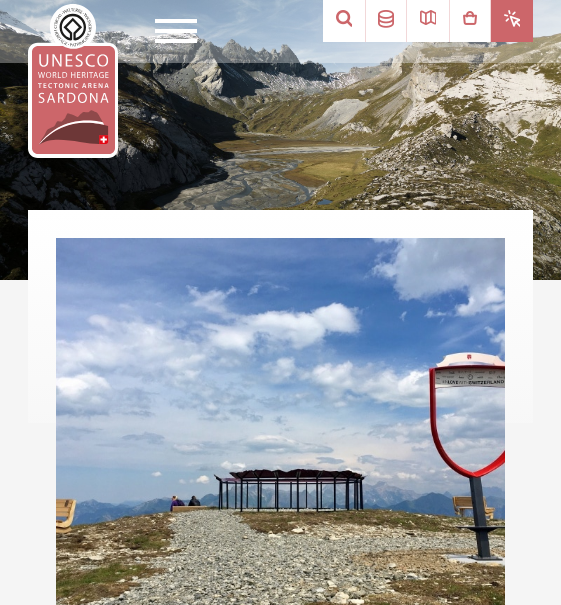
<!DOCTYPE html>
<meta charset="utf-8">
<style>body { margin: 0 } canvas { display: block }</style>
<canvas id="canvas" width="561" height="605"></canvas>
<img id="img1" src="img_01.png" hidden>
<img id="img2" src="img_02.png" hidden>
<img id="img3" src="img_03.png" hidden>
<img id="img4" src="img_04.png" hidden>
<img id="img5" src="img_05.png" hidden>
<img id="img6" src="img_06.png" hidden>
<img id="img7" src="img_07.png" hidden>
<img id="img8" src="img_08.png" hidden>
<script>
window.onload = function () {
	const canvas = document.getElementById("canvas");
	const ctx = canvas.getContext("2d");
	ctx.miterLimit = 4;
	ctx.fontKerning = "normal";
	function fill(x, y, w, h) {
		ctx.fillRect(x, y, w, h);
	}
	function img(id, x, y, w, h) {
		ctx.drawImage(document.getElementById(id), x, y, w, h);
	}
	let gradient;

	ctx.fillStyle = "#F5F5F5";
	fill(0, 0, 561, 605);
	img("img1", 0, 0, 561, 280);
	ctx.fillStyle = "rgba(255, 255, 255, 0.33)";
	fill(0, 0, 561, 63);
	img("img2", 28, 4, 90, 154);
	ctx.fillStyle = "#FFFFFF";
	fill(155, 19, 42, 4);
	fill(155, 29, 42, 4);
	fill(155, 39, 42, 4);
	fill(323, 0, 42, 42);
	img("img3", 336, 10, 16, 17);
	fill(366, 0, 40, 42);
	img("img4", 378, 10, 16, 18);
	ctx.fillStyle = "#F2D8D9";
	fill(406, 0, 1, 42);
	fill(365, 0, 1, 42);
	ctx.fillStyle = "#FFFFFF";
	fill(407, 0, 42, 42);
	img("img5", 420, 10, 16, 15);
	fill(450, 0, 40, 42);
	img("img6", 463, 11, 14, 14);
	ctx.fillStyle = "#F2D8D9";
	fill(490, 0, 1, 42);
	fill(449, 0, 1, 42);
	ctx.fillStyle = "#CC666A";
	fill(491, 0, 42, 42);
	img("img7", 504, 10, 16, 17);
	gradient = ctx.createLinearGradient(280, 210, 281, 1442);
	gradient.addColorStop(0, "#FFFFFF");
	gradient.addColorStop(0.23, "#F5F5F5");
	ctx.fillStyle = gradient;
	fill(28, 210, 505, 213);
	img("img8", 56, 238, 449, 367);
};
</script>
